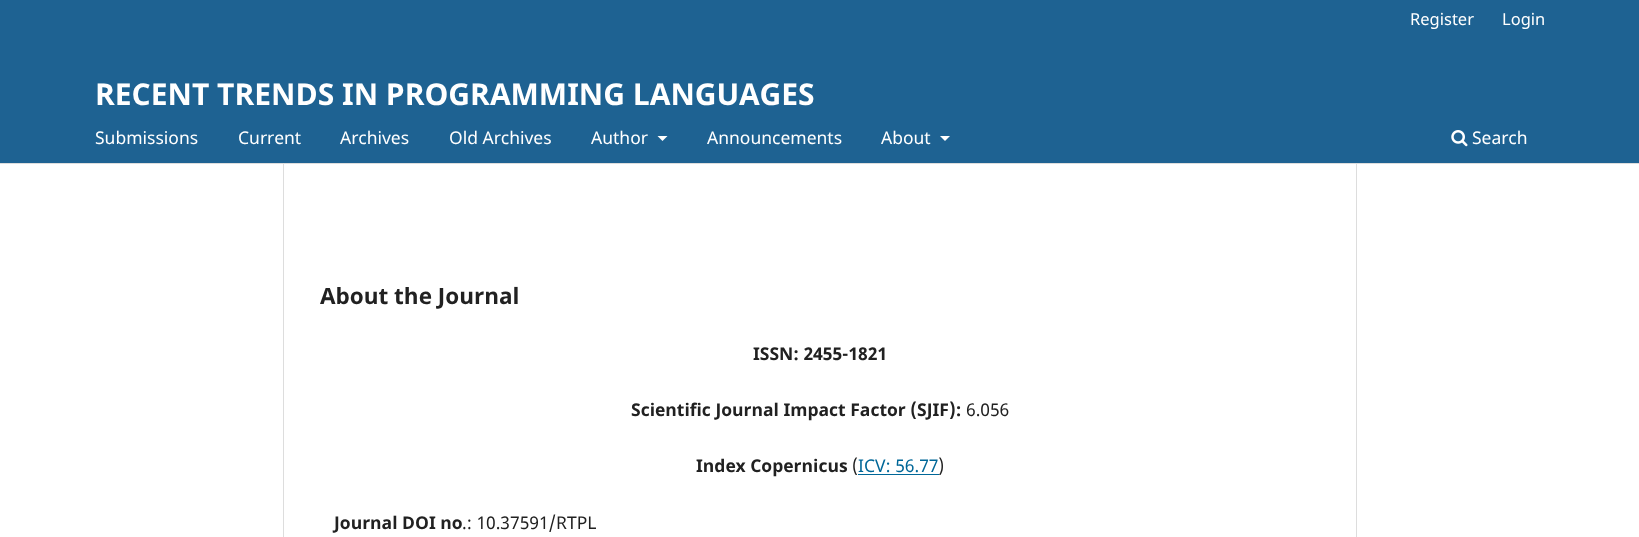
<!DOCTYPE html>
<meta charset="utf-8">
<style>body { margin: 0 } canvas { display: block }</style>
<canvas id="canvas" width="1639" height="537"></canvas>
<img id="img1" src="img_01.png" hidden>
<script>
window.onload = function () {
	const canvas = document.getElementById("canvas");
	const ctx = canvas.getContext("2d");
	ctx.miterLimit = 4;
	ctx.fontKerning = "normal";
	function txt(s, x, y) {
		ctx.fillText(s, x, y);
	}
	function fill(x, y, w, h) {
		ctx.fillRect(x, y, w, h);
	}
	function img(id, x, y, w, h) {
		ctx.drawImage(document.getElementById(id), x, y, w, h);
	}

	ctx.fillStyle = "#FFFFFF";
	fill(0, 0, 1639, 537);
	ctx.fillStyle = "#1E6292";
	fill(0, 0, 1639, 163);
	ctx.fillStyle = "#DDDDDD";
	fill(0, 163, 1639, 1);
	ctx.fillStyle = "#FFFFFF";
	ctx.beginPath();
	ctx.moveTo(657.5, 136);
	ctx.lineTo(667.5, 136);
	ctx.lineTo(662.5, 141);
	ctx.closePath();
	ctx.fill();
	ctx.beginPath();
	ctx.moveTo(940, 136);
	ctx.lineTo(950, 136);
	ctx.lineTo(945, 141);
	ctx.closePath();
	ctx.fill();
	img("img1", 1451, 130, 17, 17);
	ctx.fillStyle = "#DDDDDD";
	fill(283, 164, 1, 373);
	ctx.fillStyle = "#006798";
	fill(858, 474, 81, 1);
	ctx.fillStyle = "#DDDDDD";
	fill(1356, 164, 1, 373);
	ctx.font = "16.5px Noto Sans";
	ctx.fillStyle = "#FFFFFF";
	txt("Register", 1410, 25);
	txt("Login", 1502, 25);
	ctx.font = "17.5px Noto Sans";
	txt("Submissions", 95, 144);
	txt("Current", 238, 144);
	txt("Archives", 340, 144);
	txt("Old Archives", 449, 144);
	txt("Author", 591, 144);
	txt("Announcements", 707, 144);
	txt("About", 881, 144);
	txt("Search", 1472, 144);
	ctx.font = "bold 30px Noto Sans";
	txt("RECENT TRENDS IN PROGRAMMING LANGUAGES", 95, 105);
	ctx.font = "bold 22.5px Noto Sans";
	ctx.fillStyle = "#212121";
	txt("About the Journal", 320, 304);
	ctx.font = "bold 17.5px Noto Sans";
	txt("ISSN: 2455-1821", 753, 360);
	txt("Scientific Journal Impact Factor (SJIF):", 631, 416);
	ctx.font = "17.5px Noto Sans";
	txt("6.056", 966, 416);
	ctx.font = "bold 17.5px Noto Sans";
	txt("Index Copernicus", 696, 472);
	ctx.font = "17.5px Noto Sans";
	txt("(", 852, 472);
	ctx.fillStyle = "#006798";
	txt("ICV: 56.77", 858, 472);
	ctx.fillStyle = "#212121";
	txt(")", 938, 472);
	ctx.font = "bold 17.5px Noto Sans";
	txt("Journal DOI no", 334, 529);
	ctx.font = "17.5px Noto Sans";
	txt(".: 10.37591/RTPL", 462, 529);
};
</script>
